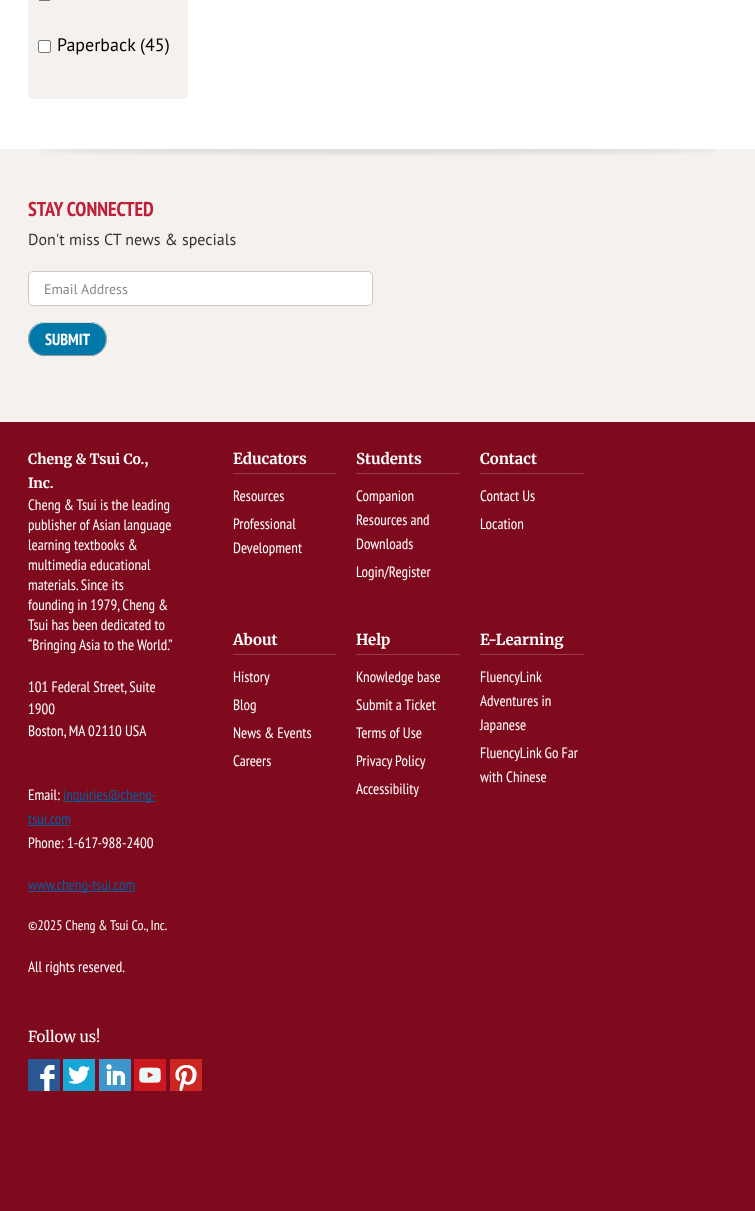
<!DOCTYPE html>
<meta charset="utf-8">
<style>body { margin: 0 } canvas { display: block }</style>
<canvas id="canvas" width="755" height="1211"></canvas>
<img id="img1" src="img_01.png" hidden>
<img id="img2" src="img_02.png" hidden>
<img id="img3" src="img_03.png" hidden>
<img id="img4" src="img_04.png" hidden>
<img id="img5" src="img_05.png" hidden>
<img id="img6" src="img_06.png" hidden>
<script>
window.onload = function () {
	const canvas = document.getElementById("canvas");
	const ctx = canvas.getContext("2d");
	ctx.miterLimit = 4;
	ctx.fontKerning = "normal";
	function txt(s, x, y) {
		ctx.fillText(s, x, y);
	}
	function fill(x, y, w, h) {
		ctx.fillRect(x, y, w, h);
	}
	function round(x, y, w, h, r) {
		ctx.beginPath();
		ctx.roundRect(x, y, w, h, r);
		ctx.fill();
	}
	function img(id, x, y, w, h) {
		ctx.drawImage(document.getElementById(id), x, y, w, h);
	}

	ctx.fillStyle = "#FFFFFF";
	fill(0, 0, 755, 1211);
	ctx.fillStyle = "#F4F1EF";
	round(28, -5, 160, 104, 5);
	ctx.beginPath();
	ctx.roundRect(38.5, -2.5, 12, 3, 1.5);
	ctx.strokeStyle = "#767676";
	ctx.stroke();
	ctx.fillStyle = "#FFFFFF";
	ctx.beginPath();
	ctx.roundRect(38.5, 40.5, 12, 12, 1.5);
	ctx.fill();
	ctx.stroke();
	ctx.fillStyle = "#F4F1EF";
	fill(0, 149, 755, 273);
	img("img1", 41, 149, 674, 7);
	ctx.fillStyle = "#FFFFFF";
	ctx.beginPath();
	ctx.roundRect(28.5, 271.5, 344, 34, 4.5);
	ctx.fill();
	ctx.strokeStyle = "#C8C8C8";
	ctx.stroke();
	ctx.fillStyle = "#0078A8";
	round(28, 322, 79, 34, 17);
	ctx.beginPath();
	ctx.moveTo(33.5, 327.5);
	ctx.bezierCurveTo(36.5, 324, 40.5, 322.5, 45, 322.5);
	ctx.lineTo(90, 322.5);
	ctx.bezierCurveTo(94.5, 322.5, 98.5, 324, 101.5, 327.5);
	ctx.strokeStyle = "#DDDDDD";
	ctx.stroke();
	ctx.beginPath();
	ctx.moveTo(101.5, 327.5);
	ctx.bezierCurveTo(108, 333.5, 108, 344.5, 101.5, 350.5);
	ctx.strokeStyle = "#BBBBBB";
	ctx.stroke();
	ctx.beginPath();
	ctx.moveTo(101.5, 350.5);
	ctx.bezierCurveTo(98.5, 354, 94.5, 355.5, 90, 355.5);
	ctx.lineTo(45, 355.5);
	ctx.bezierCurveTo(40.5, 355.5, 36.5, 354, 33.5, 350.5);
	ctx.strokeStyle = "#999999";
	ctx.stroke();
	ctx.beginPath();
	ctx.moveTo(33.5, 350.5);
	ctx.bezierCurveTo(27, 344.5, 27, 333.5, 33.5, 327.5);
	ctx.strokeStyle = "#BBBBBB";
	ctx.stroke();
	ctx.fillStyle = "#7F0A1D";
	fill(0, 422, 755, 789);
	ctx.fillStyle = "#0062A0";
	fill(63, 801, 93, 1);
	fill(28, 825, 42, 1);
	fill(28, 891, 107, 1);
	ctx.fillStyle = "#973B49";
	fill(233, 473, 103, 1);
	fill(356, 473, 104, 1);
	fill(480, 473, 104, 1);
	fill(233, 654, 103, 1);
	fill(356, 654, 104, 1);
	fill(480, 654, 104, 1);
	img("img2", 28, 1059, 32, 32);
	img("img3", 63, 1059, 32, 32);
	img("img4", 99, 1059, 32, 32);
	img("img5", 134, 1059, 32, 32);
	img("img6", 170, 1059, 32, 32);
	ctx.font = "18px PT Sans";
	ctx.fillStyle = "#000000";
	txt("Paperback (45)", 57, 51);
	ctx.font = "bold 20px PT Sans Narrow";
	ctx.fillStyle = "#C01F38";
	txt("STAY CONNECTED", 28, 216);
	ctx.font = "16px PT Sans";
	ctx.fillStyle = "#333333";
	txt("Don't miss CT news & specials", 28, 245);
	ctx.font = "14px PT Sans";
	ctx.fillStyle = "#888888";
	txt("Email Address", 44, 294);
	ctx.font = "bold 16px PT Sans Narrow";
	ctx.fillStyle = "#FFFFFF";
	txt("SUBMIT", 45, 345);
	ctx.font = "bold 14px Merriweather";
	txt("Cheng & Tsui Co.,", 28, 464);
	txt("Inc.", 28, 488);
	ctx.font = "15px PT Sans Narrow";
	txt("Cheng & Tsui is the leading", 28, 510);
	txt("publisher of Asian language", 28, 530);
	txt("learning textbooks &", 28, 550);
	txt("multimedia educational", 28, 570);
	txt("materials. Since its", 28, 590);
	txt("founding in 1979, Cheng &", 28, 610);
	txt("Tsui has been dedicated to", 28, 630);
	txt("“Bringing Asia to the World.”", 28, 650);
	txt("101 Federal Street, Suite", 28, 692);
	txt("1900", 28, 714);
	txt("Boston, MA 02110 USA", 28, 736);
	txt("Email:", 28, 800);
	ctx.fillStyle = "#0062A0";
	txt("inquiries@cheng-", 63, 800);
	txt("tsui.com", 28, 824);
	ctx.fillStyle = "#FFFFFF";
	txt("Phone: 1-617-988-2400", 28, 848);
	ctx.fillStyle = "#0062A0";
	txt("www.cheng-tsui.com", 28, 890);
	ctx.font = "13.8px PT Sans Narrow";
	ctx.fillStyle = "#FFFFFF";
	txt("©2025 Cheng & Tsui Co., Inc.", 28, 930);
	ctx.font = "15px PT Sans Narrow";
	txt("All rights reserved.", 28, 972);
	ctx.font = "bold 15px Merriweather";
	txt("Educators", 233, 464);
	ctx.font = "15px PT Sans Narrow";
	txt("Resources", 233, 501);
	txt("Professional", 233, 529);
	txt("Development", 233, 553);
	ctx.font = "bold 15px Merriweather";
	txt("Students", 356, 464);
	ctx.font = "15px PT Sans Narrow";
	txt("Companion", 356, 501);
	txt("Resources and", 356, 525);
	txt("Downloads", 356, 549);
	txt("Login/Register", 356, 577);
	ctx.font = "bold 15px Merriweather";
	txt("Contact", 480, 464);
	ctx.font = "15px PT Sans Narrow";
	txt("Contact Us", 480, 501);
	txt("Location", 480, 529);
	ctx.font = "bold 15px Merriweather";
	txt("About", 233, 645);
	ctx.font = "15px PT Sans Narrow";
	txt("History", 233, 682);
	txt("Blog", 233, 710);
	txt("News & Events", 233, 738);
	txt("Careers", 233, 766);
	ctx.font = "bold 15px Merriweather";
	txt("Help", 356, 645);
	ctx.font = "15px PT Sans Narrow";
	txt("Knowledge base", 356, 682);
	txt("Submit a Ticket", 356, 710);
	txt("Terms of Use", 356, 738);
	txt("Privacy Policy", 356, 766);
	txt("Accessibility", 356, 794);
	ctx.font = "bold 15px Merriweather";
	txt("E-Learning", 480, 645);
	ctx.font = "15px PT Sans Narrow";
	txt("FluencyLink", 480, 682);
	txt("Adventures in", 480, 706);
	txt("Japanese", 480, 730);
	txt("FluencyLink Go Far", 480, 758);
	txt("with Chinese", 480, 782);
	ctx.font = "15px Merriweather";
	txt("Follow us!", 28, 1042);
};
</script>
